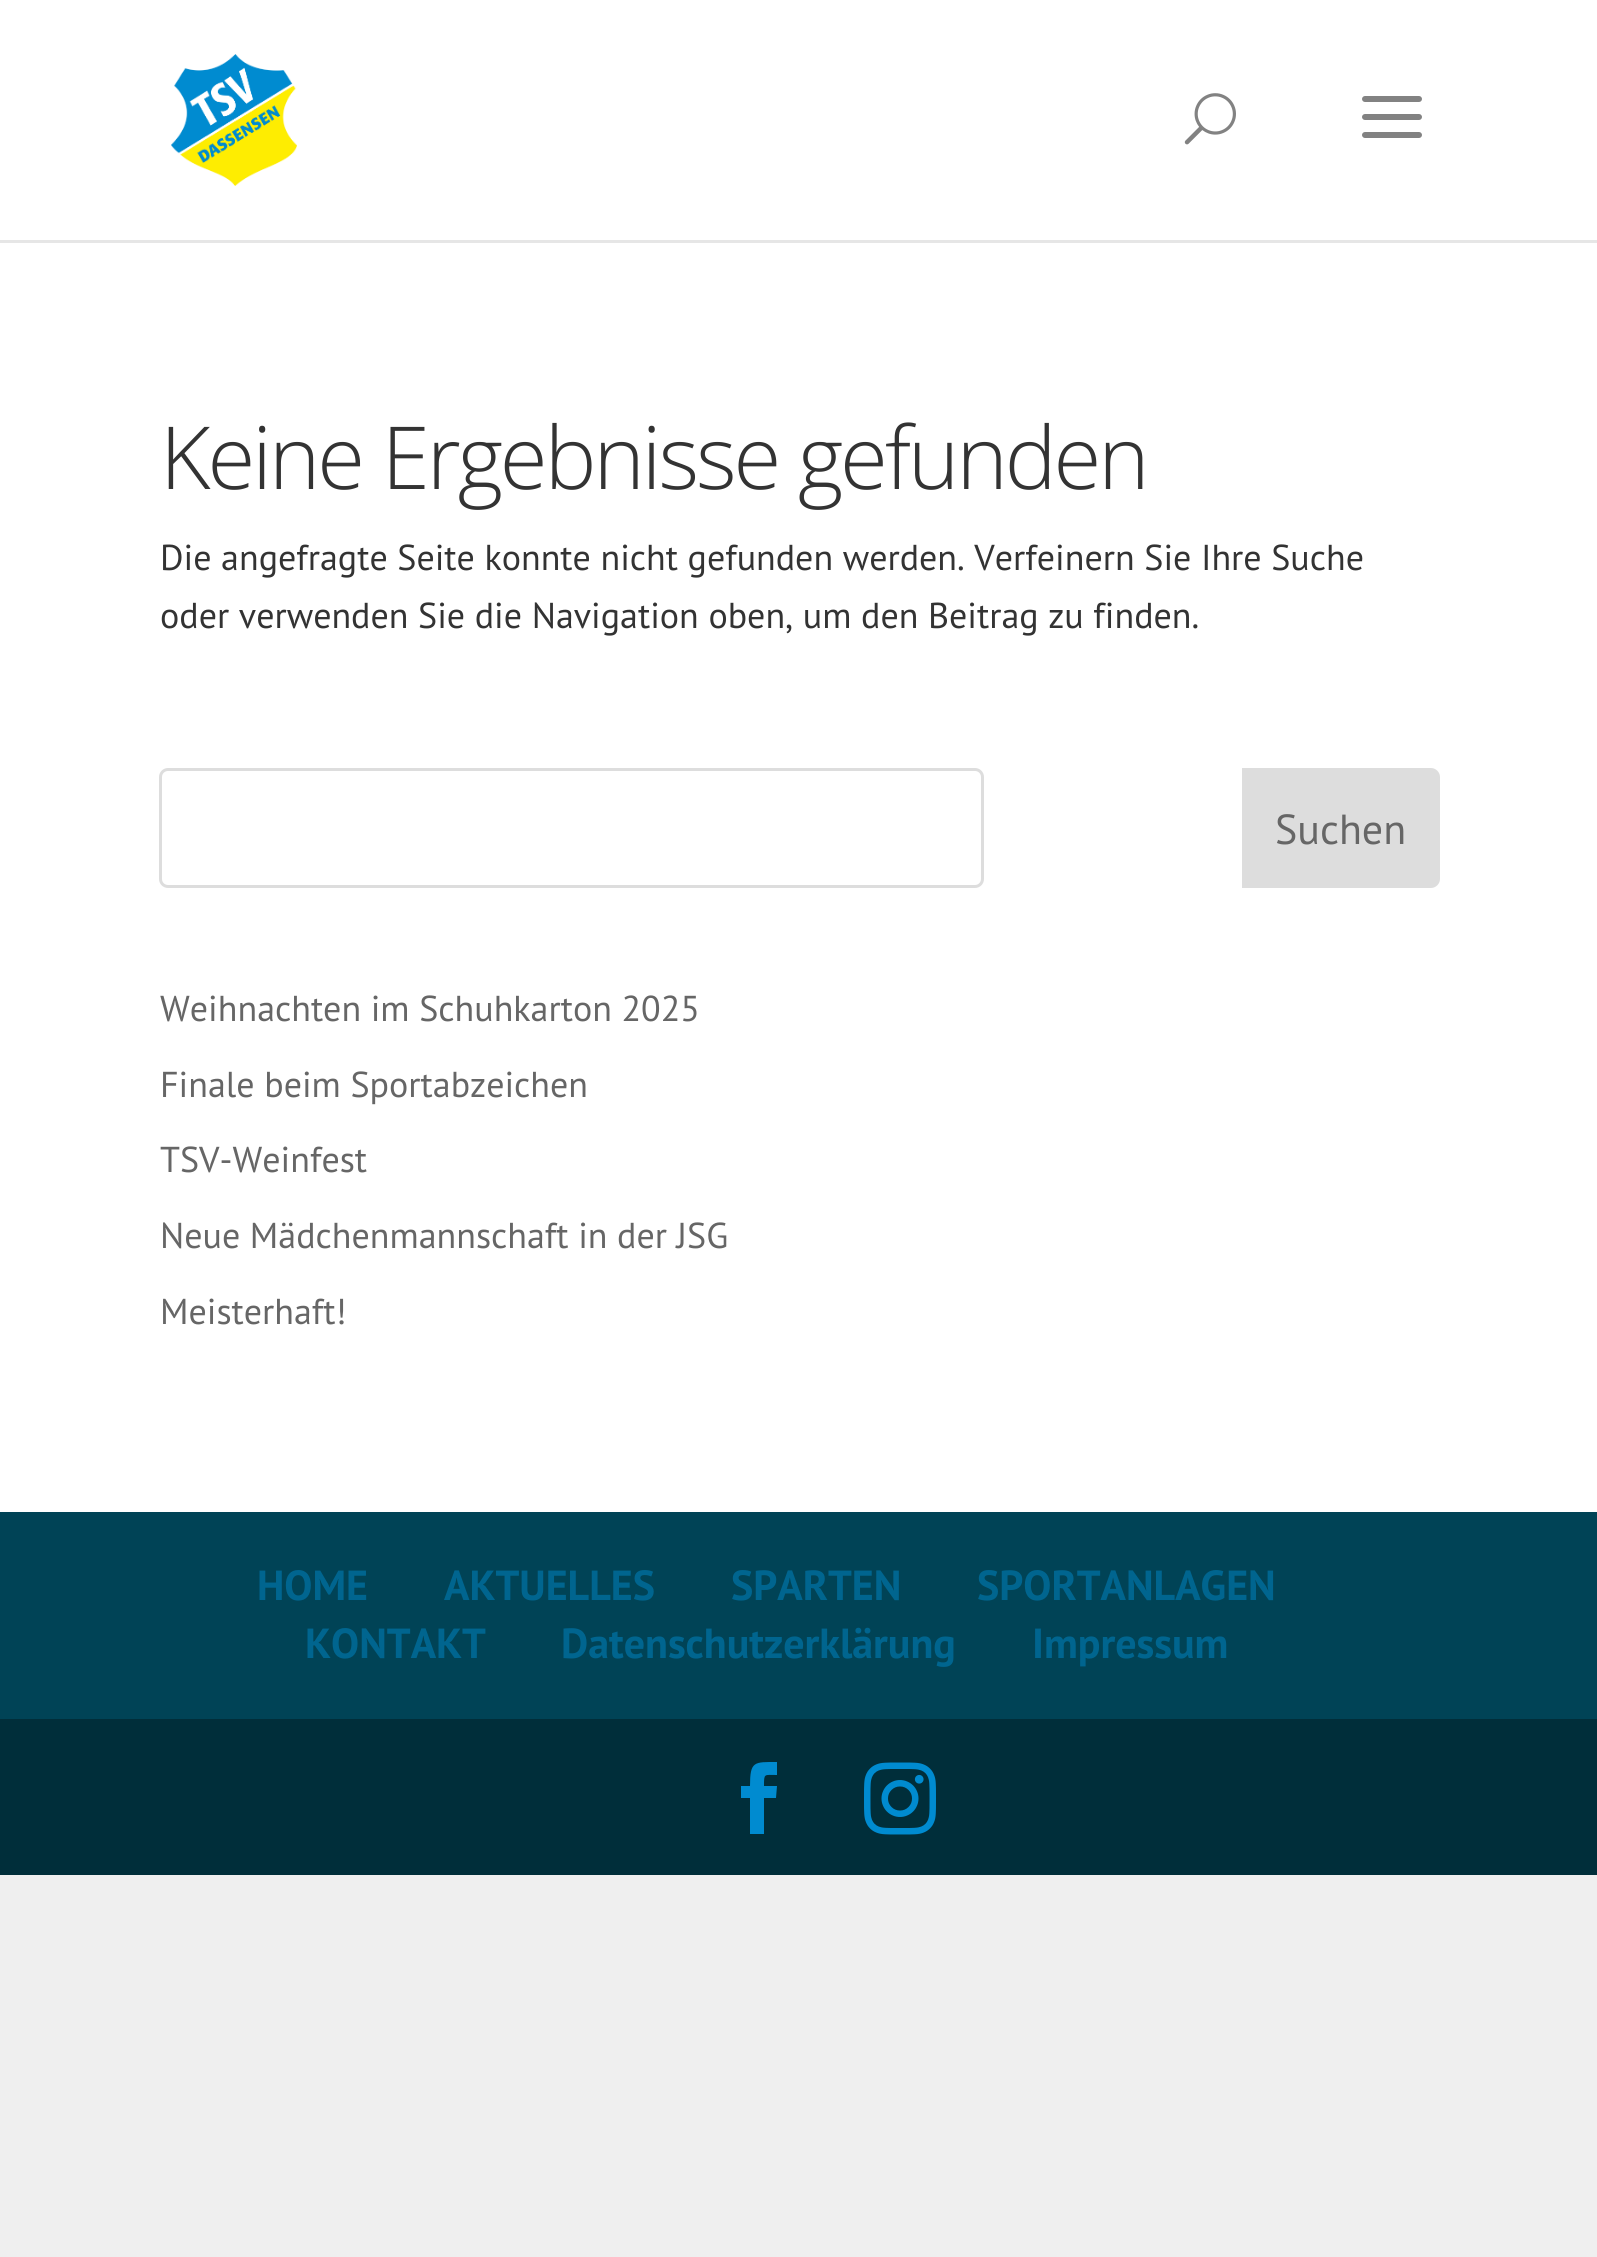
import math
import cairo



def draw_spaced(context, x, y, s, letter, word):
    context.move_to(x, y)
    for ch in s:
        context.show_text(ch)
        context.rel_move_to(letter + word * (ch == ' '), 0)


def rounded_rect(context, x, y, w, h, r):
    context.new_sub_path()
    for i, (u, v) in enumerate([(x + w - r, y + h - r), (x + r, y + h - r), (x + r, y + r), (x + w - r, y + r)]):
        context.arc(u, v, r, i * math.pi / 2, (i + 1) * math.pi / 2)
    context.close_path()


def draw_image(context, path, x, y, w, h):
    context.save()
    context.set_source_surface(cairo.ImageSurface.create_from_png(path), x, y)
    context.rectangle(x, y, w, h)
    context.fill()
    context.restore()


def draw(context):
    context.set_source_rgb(239 / 255, 239 / 255, 239 / 255)
    context.paint()
    context.set_source_rgb(230 / 255, 230 / 255, 230 / 255)
    context.rectangle(0, 240, 1597, 3)
    context.fill()
    context.set_source_rgb(1, 1, 1)
    context.rectangle(0, 0, 1597, 240)
    context.fill()
    draw_image(context, "images/1.png", 171, 54, 126, 132)
    draw_image(context, "images/2.png", 1184, 93, 52, 52)
    draw_image(context, "images/3.png", 1362, 96, 60, 42)
    context.rectangle(0, 243, 1597, 1269)
    context.fill()
    rounded_rect(context, 160.5, 769.5, 822, 117, 7.5)
    context.set_source_rgb(221 / 255, 221 / 255, 221 / 255)
    context.set_line_width(3)
    context.stroke()
    context.new_path()
    context.move_to(1243.5, 769.5)
    context.line_to(1431, 769.5)
    context.curve_to(1435, 769.5, 1438.5, 773, 1438.5, 777)
    context.line_to(1438.5, 879)
    context.curve_to(1438.5, 883, 1435, 886.5, 1431, 886.5)
    context.line_to(1243.5, 886.5)
    context.close_path()
    context.fill_preserve()
    context.stroke()
    context.set_source_rgb(0, 67 / 255, 86 / 255)
    context.rectangle(0, 1512, 1597, 207)
    context.fill()
    context.set_source_rgb(0, 46 / 255, 58 / 255)
    context.rectangle(0, 1719, 1597, 156)
    context.fill()
    context.set_source_rgb(0, 139 / 255, 208 / 255)
    context.new_path()
    context.move_to(750, 1834)
    context.line_to(764, 1834)
    context.line_to(764, 1798)
    context.line_to(776, 1798)
    context.line_to(777, 1786)
    context.line_to(764, 1786)
    context.curve_to(764, 1773, 764, 1775, 777, 1775)
    context.line_to(777, 1762)
    context.curve_to(754, 1762, 750, 1761, 750, 1786)
    context.line_to(741, 1786)
    context.line_to(741, 1798)
    context.line_to(750, 1798)
    context.close_path()
    context.fill()
    draw_image(context, "images/4.png", 864, 1762, 72, 73)
    context.select_font_face("Open Sans Light")
    context.set_font_size(87)
    context.set_source_rgb(51 / 255, 51 / 255, 51 / 255)
    draw_spaced(context, 160, 489, "Keine Ergebnisse gefunden", -3, 0)
    context.select_font_face("PT Sans")
    context.set_font_size(36)
    context.move_to(160, 570)
    context.show_text("Die angefragte Seite konnte nicht gefunden werden. Verfeinern Sie Ihre Suche")
    context.move_to(160, 628)
    context.show_text("oder verwenden Sie die Navigation oben, um den Beitrag zu finden.")
    context.set_font_size(42)
    context.set_source_rgb(102 / 255, 102 / 255, 102 / 255)
    context.move_to(1275, 844)
    context.show_text("Suchen")
    context.set_font_size(36)
    context.move_to(160, 1021)
    context.show_text("Weihnachten im Schuhkarton 2025")
    context.move_to(160, 1097)
    context.show_text("Finale beim Sportabzeichen")
    context.move_to(160, 1172)
    context.show_text("TSV-Weinfest")
    context.move_to(160, 1248)
    context.show_text("Neue Mädchenmannschaft in der JSG")
    context.move_to(160, 1324)
    context.show_text("Meisterhaft!")
    context.select_font_face("PT Sans", cairo.FontSlant.NORMAL, cairo.FontWeight.BOLD)
    context.set_font_size(42)
    context.set_source_rgb(0, 101 / 255, 143 / 255)
    context.move_to(257, 1600)
    context.show_text("HOME")
    context.move_to(444, 1600)
    context.show_text("AKTUELLES")
    context.move_to(731, 1600)
    context.show_text("SPARTEN")
    context.move_to(977, 1600)
    context.show_text("SPORTANLAGEN")
    context.move_to(305, 1658)
    context.show_text("KONTAKT")
    context.move_to(561, 1658)
    context.show_text("Datenschutzerklärung")
    context.move_to(1032, 1658)
    context.show_text("Impressum")


surface = cairo.ImageSurface(cairo.Format.RGB24, 1597, 2257)
context = cairo.Context(surface)
options = cairo.FontOptions()
options.set_hint_metrics(cairo.HintMetrics.OFF)
options.set_hint_style(cairo.HintStyle.NONE)
context.set_font_options(options)
context.set_miter_limit(4)
draw(context)
surface.write_to_png("out.png")
